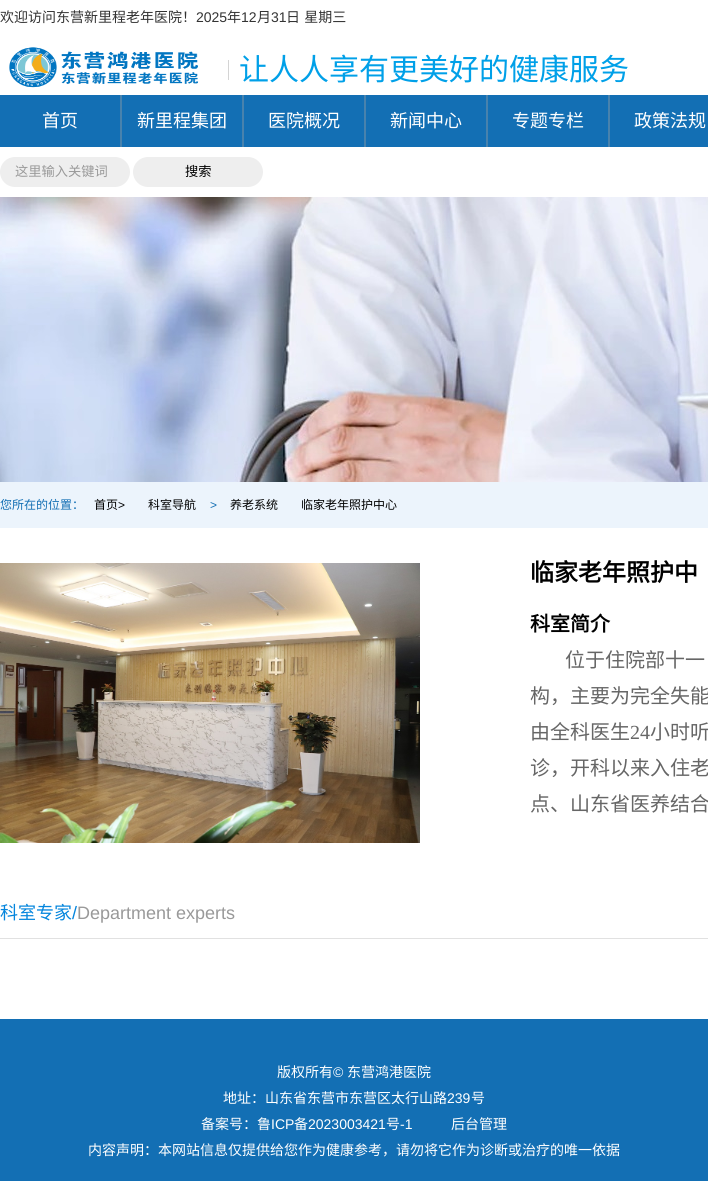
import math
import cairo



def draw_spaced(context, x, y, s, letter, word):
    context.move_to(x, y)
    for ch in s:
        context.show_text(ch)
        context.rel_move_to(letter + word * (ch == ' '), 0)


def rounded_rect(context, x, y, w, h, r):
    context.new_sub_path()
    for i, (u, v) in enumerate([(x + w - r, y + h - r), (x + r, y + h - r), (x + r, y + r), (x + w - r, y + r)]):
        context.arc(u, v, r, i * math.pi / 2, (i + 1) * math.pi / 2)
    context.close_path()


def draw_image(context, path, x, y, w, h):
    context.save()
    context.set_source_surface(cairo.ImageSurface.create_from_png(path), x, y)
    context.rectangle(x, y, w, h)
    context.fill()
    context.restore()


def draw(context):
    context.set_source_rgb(1, 1, 1)
    context.paint()
    draw_image(context, "images/1.png", 9, 47, 190, 41)
    context.set_source_rgb(212 / 255, 212 / 255, 212 / 255)
    context.rectangle(228, 60, 1, 20)
    context.fill()
    context.set_source_rgb(19 / 255, 111 / 255, 180 / 255)
    context.rectangle(0, 95, 708, 52)
    context.fill()
    context.set_source_rgb(72 / 255, 130 / 255, 173 / 255)
    context.rectangle(120, 95, 2, 52)
    context.fill()
    context.rectangle(242, 95, 2, 52)
    context.fill()
    context.rectangle(364, 95, 2, 52)
    context.fill()
    context.rectangle(486, 95, 2, 52)
    context.fill()
    context.rectangle(608, 95, 2, 52)
    context.fill()
    context.set_source_rgb(238 / 255, 238 / 255, 238 / 255)
    rounded_rect(context, 0, 157, 130, 30, 15)
    context.fill()
    rounded_rect(context, 133, 157, 130, 30, 15)
    context.fill()
    draw_image(context, "images/2.png", 0, 197, 708, 285)
    context.set_source_rgb(236 / 255, 244 / 255, 252 / 255)
    context.rectangle(0, 482, 708, 46)
    context.fill()
    draw_image(context, "images/3.png", 0, 563, 420, 280)
    context.set_source_rgb(225 / 255, 225 / 255, 225 / 255)
    context.rectangle(0, 938, 708, 1)
    context.fill()
    context.set_source_rgb(19 / 255, 111 / 255, 180 / 255)
    context.rectangle(0, 1019, 708, 162)
    context.fill()
    context.select_font_face("Noto Sans CJK SC")
    context.set_font_size(14)
    context.set_source_rgb(51 / 255, 51 / 255, 51 / 255)
    context.move_to(0, 22)
    context.show_text("欢迎访问东营新里程老年医院！")
    context.select_font_face("Liberation Sans")
    context.move_to(196, 22)
    context.show_text("2025")
    context.select_font_face("Noto Sans CJK SC")
    context.move_to(227, 22)
    context.show_text("年")
    context.select_font_face("Liberation Sans")
    context.move_to(241, 22)
    context.show_text("12")
    context.select_font_face("Noto Sans CJK SC")
    context.move_to(257, 22)
    context.show_text("月")
    context.select_font_face("Liberation Sans")
    context.move_to(271, 22)
    context.show_text("31")
    context.select_font_face("Noto Sans CJK SC")
    draw_spaced(context, 286, 22, "日 星期三", 0, 1)
    context.set_font_size(30)
    context.set_source_rgb(0, 160 / 255, 232 / 255)
    context.move_to(239, 80)
    context.show_text("让人人享有更美好的健康服务")
    context.set_font_size(18)
    context.set_source_rgb(1, 1, 1)
    context.move_to(42, 127)
    context.show_text("首页")
    context.move_to(137, 127)
    context.show_text("新里程集团")
    context.move_to(268, 127)
    context.show_text("医院概况")
    context.move_to(390, 127)
    context.show_text("新闻中心")
    context.move_to(512, 127)
    context.show_text("专题专栏")
    context.move_to(634, 127)
    context.show_text("政策法规")
    context.set_font_size(13.25)
    context.set_source_rgb(153 / 255, 153 / 255, 153 / 255)
    context.move_to(15, 176)
    context.show_text("这里输入关键词")
    context.set_source_rgb(0, 0, 0)
    context.move_to(185, 176)
    context.show_text("搜索")
    context.set_font_size(12)
    context.set_source_rgb(19 / 255, 111 / 255, 180 / 255)
    context.move_to(0, 509)
    context.show_text("您所在的位置：")
    context.set_source_rgb(0, 0, 0)
    context.move_to(94, 509)
    context.show_text("首页")
    context.select_font_face("Liberation Sans")
    context.move_to(118, 509)
    context.show_text(">")
    context.select_font_face("Noto Sans CJK SC")
    context.move_to(148, 509)
    context.show_text("科室导航")
    context.select_font_face("Liberation Sans")
    context.set_source_rgb(19 / 255, 111 / 255, 180 / 255)
    context.move_to(210, 509)
    context.show_text(">")
    context.select_font_face("Noto Sans CJK SC")
    context.set_source_rgb(0, 0, 0)
    context.move_to(230, 509)
    context.show_text("养老系统")
    context.move_to(301, 509)
    context.show_text("临家老年照护中心")
    context.select_font_face("Noto Sans CJK SC", cairo.FontSlant.NORMAL, cairo.FontWeight.BOLD)
    context.set_font_size(24)
    context.move_to(530, 581)
    context.show_text("临家老年照护中")
    context.set_font_size(20)
    context.move_to(530, 631)
    context.show_text("科室简介")
    context.select_font_face("Noto Sans CJK SC")
    context.set_source_rgb(102 / 255, 102 / 255, 102 / 255)
    context.move_to(565, 667)
    context.show_text("位于住院部十一")
    context.move_to(530, 703)
    context.show_text("构，主要为完全失能")
    context.move_to(530, 739)
    context.show_text("由全科医生")
    context.select_font_face("Liberation Serif")
    context.move_to(630, 739)
    context.show_text("24")
    context.select_font_face("Noto Sans CJK SC")
    context.move_to(650, 739)
    context.show_text("小时听")
    context.move_to(530, 775)
    context.show_text("诊，开科以来入住老")
    context.move_to(530, 811)
    context.show_text("点、山东省医养结合")
    context.set_font_size(18)
    context.set_source_rgb(3 / 255, 133 / 255, 221 / 255)
    context.move_to(0, 919)
    context.show_text("科室专家")
    context.select_font_face("Liberation Sans")
    context.move_to(72, 919)
    context.show_text("/")
    context.set_source_rgb(153 / 255, 153 / 255, 153 / 255)
    context.move_to(77, 919)
    context.show_text("Department experts")
    context.select_font_face("Noto Sans CJK SC")
    context.set_font_size(14)
    context.set_source_rgb(1, 1, 1)
    context.move_to(277, 1077)
    context.show_text("版权所有")
    context.select_font_face("Liberation Sans")
    context.move_to(333, 1077)
    context.show_text("©")
    context.select_font_face("Noto Sans CJK SC")
    context.move_to(347, 1077)
    context.show_text("东营鸿港医院")
    context.move_to(223, 1103)
    context.show_text("地址：山东省东营市东营区太行山路")
    context.select_font_face("Liberation Sans")
    context.move_to(447, 1103)
    context.show_text("239")
    context.select_font_face("Noto Sans CJK SC")
    context.move_to(471, 1103)
    context.show_text("号")
    context.move_to(201, 1129)
    context.show_text("备案号：鲁")
    context.select_font_face("Liberation Sans")
    context.move_to(271, 1129)
    context.show_text("ICP")
    context.select_font_face("Noto Sans CJK SC")
    context.move_to(294, 1129)
    context.show_text("备")
    context.select_font_face("Liberation Sans")
    context.move_to(308, 1129)
    context.show_text("2023003421")
    context.select_font_face("Noto Sans CJK SC")
    context.move_to(386, 1129)
    context.show_text("号")
    context.select_font_face("Liberation Sans")
    context.move_to(400, 1129)
    context.show_text("-1")
    context.select_font_face("Noto Sans CJK SC")
    context.move_to(451, 1129)
    context.show_text("后台管理")
    context.move_to(88, 1155)
    context.show_text("内容声明：本网站信息仅提供给您作为健康参考，请勿将它作为诊断或治疗的唯一依据")


surface = cairo.ImageSurface(cairo.Format.RGB24, 708, 1181)
context = cairo.Context(surface)
options = cairo.FontOptions()
options.set_hint_metrics(cairo.HintMetrics.OFF)
options.set_hint_style(cairo.HintStyle.NONE)
context.set_font_options(options)
context.set_miter_limit(4)
draw(context)
surface.write_to_png("out.png")
